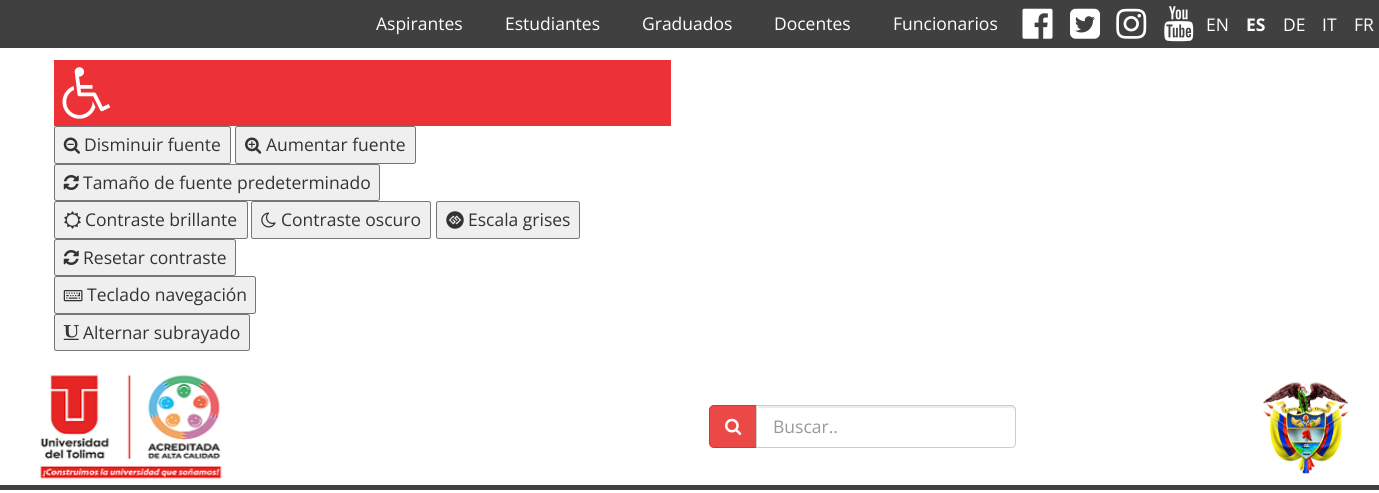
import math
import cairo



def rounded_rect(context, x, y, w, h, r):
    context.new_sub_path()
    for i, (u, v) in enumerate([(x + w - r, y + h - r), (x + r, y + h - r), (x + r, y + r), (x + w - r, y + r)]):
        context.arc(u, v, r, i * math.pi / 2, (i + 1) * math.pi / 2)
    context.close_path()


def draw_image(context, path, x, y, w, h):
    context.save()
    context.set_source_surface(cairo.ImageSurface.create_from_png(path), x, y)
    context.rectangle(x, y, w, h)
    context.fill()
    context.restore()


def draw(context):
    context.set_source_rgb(1, 1, 1)
    context.paint()
    context.set_source_rgb(64 / 255, 64 / 255, 64 / 255)
    context.rectangle(0, 0, 1379, 48)
    context.fill()
    draw_image(context, "images/1.png", 1022, 8, 31, 31)
    draw_image(context, "images/2.png", 1070, 8, 30, 31)
    draw_image(context, "images/3.png", 1116, 8, 31, 31)
    draw_image(context, "images/4.png", 1164, 6, 30, 36)
    context.set_source_rgb(237 / 255, 50 / 255, 55 / 255)
    context.rectangle(54, 60, 617, 66)
    context.fill()
    draw_image(context, "images/5.png", 62, 67, 49, 52)
    context.set_source_rgb(239 / 255, 239 / 255, 239 / 255)
    rounded_rect(context, 54.5, 126.5, 176, 37, 2)
    context.fill_preserve()
    context.set_source_rgb(118 / 255, 118 / 255, 118 / 255)
    context.set_line_width(1)
    context.stroke()
    draw_image(context, "images/6.png", 63, 137, 17, 17)
    context.set_source_rgb(239 / 255, 239 / 255, 239 / 255)
    rounded_rect(context, 235.5, 126.5, 180, 37, 2)
    context.fill_preserve()
    context.set_source_rgb(118 / 255, 118 / 255, 118 / 255)
    context.stroke()
    draw_image(context, "images/7.png", 245, 137, 17, 17)
    context.set_source_rgb(239 / 255, 239 / 255, 239 / 255)
    rounded_rect(context, 54.5, 164.5, 325, 36, 2)
    context.fill_preserve()
    context.set_source_rgb(118 / 255, 118 / 255, 118 / 255)
    context.stroke()
    draw_image(context, "images/8.png", 63, 175, 16, 15)
    context.set_source_rgb(239 / 255, 239 / 255, 239 / 255)
    rounded_rect(context, 54.5, 201.5, 193, 37, 2)
    context.fill_preserve()
    context.set_source_rgb(118 / 255, 118 / 255, 118 / 255)
    context.stroke()
    draw_image(context, "images/9.png", 64, 211, 17, 18)
    context.set_source_rgb(239 / 255, 239 / 255, 239 / 255)
    rounded_rect(context, 251.5, 201.5, 179, 37, 2)
    context.fill_preserve()
    context.set_source_rgb(118 / 255, 118 / 255, 118 / 255)
    context.stroke()
    draw_image(context, "images/10.png", 261, 212, 15, 16)
    context.set_source_rgb(239 / 255, 239 / 255, 239 / 255)
    rounded_rect(context, 436.5, 201.5, 143, 37, 2)
    context.fill_preserve()
    context.set_source_rgb(118 / 255, 118 / 255, 118 / 255)
    context.stroke()
    draw_image(context, "images/11.png", 446, 211, 18, 18)
    context.set_source_rgb(239 / 255, 239 / 255, 239 / 255)
    rounded_rect(context, 54.5, 239.5, 181, 36, 2)
    context.fill_preserve()
    context.set_source_rgb(118 / 255, 118 / 255, 118 / 255)
    context.stroke()
    draw_image(context, "images/8.png", 63, 250, 16, 15)
    context.set_source_rgb(239 / 255, 239 / 255, 239 / 255)
    rounded_rect(context, 54.5, 276.5, 201, 37, 2)
    context.fill_preserve()
    context.set_source_rgb(118 / 255, 118 / 255, 118 / 255)
    context.stroke()
    draw_image(context, "images/12.png", 63, 290, 20, 12)
    context.set_source_rgb(239 / 255, 239 / 255, 239 / 255)
    rounded_rect(context, 54.5, 314.5, 195, 36, 2)
    context.fill_preserve()
    context.set_source_rgb(118 / 255, 118 / 255, 118 / 255)
    context.stroke()
    draw_image(context, "images/13.png", 63, 325, 16, 15)
    draw_image(context, "images/14.png", 39, 374, 184, 106)
    context.set_source_rgb(235 / 255, 73 / 255, 71 / 255)
    context.new_path()
    context.move_to(714, 405.5)
    context.line_to(757.5, 405.5)
    context.line_to(757.5, 447.5)
    context.line_to(714, 447.5)
    context.curve_to(711.5, 447.5, 709.5, 445.5, 709.5, 443)
    context.line_to(709.5, 410)
    context.curve_to(709.5, 407.5, 711.5, 405.5, 714, 405.5)
    context.close_path()
    context.fill_preserve()
    context.set_source_rgb(232 / 255, 46 / 255, 43 / 255)
    context.stroke()
    draw_image(context, "images/15.png", 725, 418, 17, 17)
    context.set_source_rgb(1, 1, 1)
    context.new_path()
    context.move_to(756, 405)
    context.line_to(1011, 405)
    context.curve_to(1014, 405, 1016, 407, 1016, 410)
    context.line_to(1016, 443)
    context.curve_to(1016, 446, 1014, 448, 1011, 448)
    context.line_to(756, 448)
    context.close_path()
    context.fill()
    context.set_source_rgb(236 / 255, 236 / 255, 236 / 255)
    context.new_path()
    context.move_to(758, 408)
    context.line_to(1011, 408)
    context.curve_to(1013, 408, 1015, 409, 1015, 411)
    context.line_to(1015, 410)
    context.curve_to(1015, 408, 1013, 406, 1011, 406)
    context.line_to(758, 406)
    context.close_path()
    context.fill()
    context.new_path()
    context.move_to(756.5, 405.5)
    context.line_to(1011, 405.5)
    context.curve_to(1013.5, 405.5, 1015.5, 407.5, 1015.5, 410)
    context.line_to(1015.5, 443)
    context.curve_to(1015.5, 445.5, 1013.5, 447.5, 1011, 447.5)
    context.line_to(756.5, 447.5)
    context.close_path()
    context.set_source_rgb(204 / 255, 204 / 255, 204 / 255)
    context.stroke()
    draw_image(context, "images/16.png", 1263, 381, 86, 93)
    context.set_source_rgb(64 / 255, 64 / 255, 64 / 255)
    context.rectangle(0, 485, 1379, 5)
    context.fill()
    context.select_font_face("Open Sans")
    context.set_font_size(17.5)
    context.set_source_rgb(1, 1, 1)
    context.move_to(376, 30)
    context.show_text("Aspirantes")
    context.move_to(505, 30)
    context.show_text("Estudiantes")
    context.move_to(642, 30)
    context.show_text("Graduados")
    context.move_to(774, 30)
    context.show_text("Docentes")
    context.move_to(893, 30)
    context.show_text("Funcionarios")
    context.move_to(1206, 31)
    context.show_text("EN")
    context.select_font_face("Open Sans", cairo.FontSlant.NORMAL, cairo.FontWeight.BOLD)
    context.move_to(1246, 31)
    context.show_text("ES")
    context.select_font_face("Open Sans")
    context.move_to(1283, 31)
    context.show_text("DE")
    context.move_to(1322, 31)
    context.show_text("IT")
    context.move_to(1354, 31)
    context.show_text("FR")
    context.set_source_rgb(51 / 255, 51 / 255, 51 / 255)
    context.move_to(84, 151)
    context.show_text("Disminuir fuente")
    context.move_to(266, 151)
    context.show_text("Aumentar fuente")
    context.move_to(83, 189)
    context.show_text("Tamaño de fuente predeterminado")
    context.move_to(85, 226)
    context.show_text("Contraste brillante")
    context.move_to(281, 226)
    context.show_text("Contraste oscuro")
    context.move_to(468, 226)
    context.show_text("Escala grises")
    context.move_to(83, 264)
    context.show_text("Resetar contraste")
    context.move_to(87, 301)
    context.show_text("Teclado navegación")
    context.move_to(83, 339)
    context.show_text("Alternar subrayado")
    context.set_source_rgb(153 / 255, 153 / 255, 153 / 255)
    context.move_to(773, 433)
    context.show_text("Buscar..")


surface = cairo.ImageSurface(cairo.Format.RGB24, 1379, 493)
context = cairo.Context(surface)
options = cairo.FontOptions()
options.set_hint_metrics(cairo.HintMetrics.OFF)
options.set_hint_style(cairo.HintStyle.NONE)
context.set_font_options(options)
context.set_miter_limit(4)
draw(context)
surface.write_to_png("out.png")
